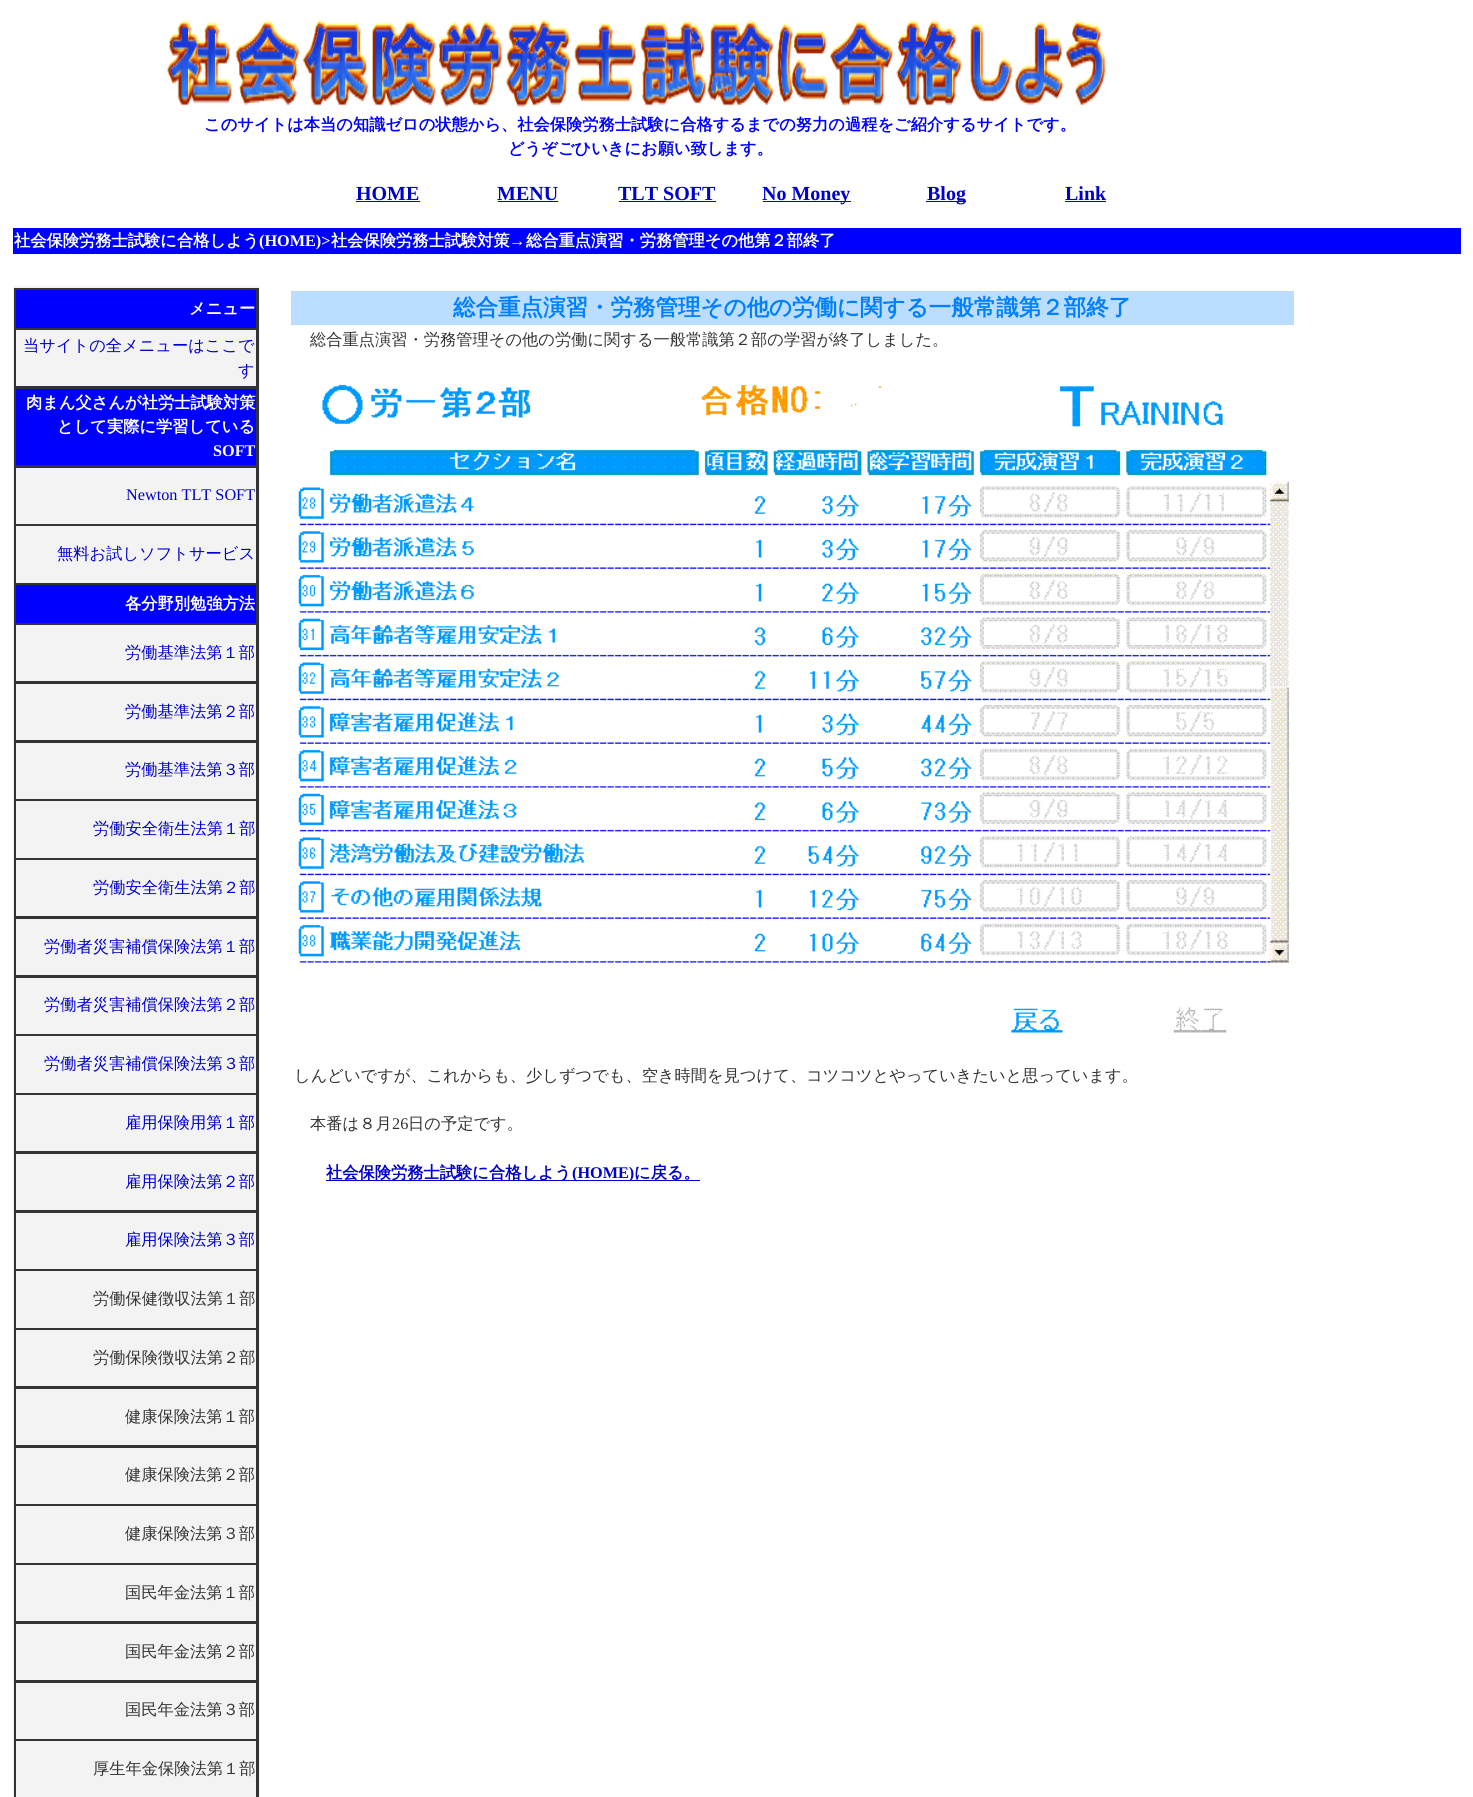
import math
import cairo



def draw_image(context, path, x, y, w, h):
    context.save()
    context.set_source_surface(cairo.ImageSurface.create_from_png(path), x, y)
    context.rectangle(x, y, w, h)
    context.fill()
    context.restore()


def draw(context):
    context.set_source_rgb(1, 1, 1)
    context.paint()
    draw_image(context, "images/1.png", 167, 19, 939, 89)
    context.set_source_rgb(0, 0, 204 / 255)
    context.rectangle(356, 201, 64, 1)
    context.fill()
    context.rectangle(498, 201, 60, 1)
    context.fill()
    context.rectangle(619, 201, 97, 1)
    context.fill()
    context.rectangle(763, 201, 88, 1)
    context.fill()
    context.rectangle(926, 201, 40, 1)
    context.fill()
    context.rectangle(1065, 201, 41, 1)
    context.fill()
    context.set_source_rgb(0, 0, 1)
    context.rectangle(13, 228, 1448, 26)
    context.fill()
    context.set_source_rgb(243 / 255, 243 / 255, 243 / 255)
    context.rectangle(13, 286, 247, 1511)
    context.fill()
    context.set_source_rgb(51 / 255, 51 / 255, 51 / 255)
    context.rectangle(14, 288, 245, 1509)
    context.fill()
    context.set_source_rgb(0, 0, 1)
    context.rectangle(16, 290, 240, 38)
    context.fill()
    context.set_source_rgb(243 / 255, 243 / 255, 243 / 255)
    context.rectangle(16, 330, 240, 56)
    context.fill()
    context.set_source_rgb(0, 0, 1)
    context.rectangle(16, 389, 240, 76)
    context.fill()
    context.set_source_rgb(243 / 255, 243 / 255, 243 / 255)
    context.rectangle(16, 468, 240, 56)
    context.fill()
    context.rectangle(16, 526, 240, 57)
    context.fill()
    context.set_source_rgb(0, 0, 1)
    context.rectangle(16, 585, 240, 38)
    context.fill()
    context.set_source_rgb(243 / 255, 243 / 255, 243 / 255)
    context.rectangle(16, 625, 240, 56)
    context.fill()
    context.rectangle(16, 684, 240, 56)
    context.fill()
    context.rectangle(16, 743, 240, 56)
    context.fill()
    context.rectangle(16, 801, 240, 57)
    context.fill()
    context.rectangle(16, 860, 240, 56)
    context.fill()
    context.rectangle(16, 919, 240, 56)
    context.fill()
    context.rectangle(16, 978, 240, 56)
    context.fill()
    context.rectangle(16, 1036, 240, 57)
    context.fill()
    context.rectangle(16, 1095, 240, 56)
    context.fill()
    context.rectangle(16, 1154, 240, 56)
    context.fill()
    context.rectangle(16, 1213, 240, 56)
    context.fill()
    context.rectangle(16, 1271, 240, 57)
    context.fill()
    context.rectangle(16, 1330, 240, 56)
    context.fill()
    context.rectangle(16, 1389, 240, 56)
    context.fill()
    context.rectangle(16, 1448, 240, 56)
    context.fill()
    context.rectangle(16, 1506, 240, 57)
    context.fill()
    context.rectangle(16, 1565, 240, 56)
    context.fill()
    context.rectangle(16, 1624, 240, 56)
    context.fill()
    context.rectangle(16, 1683, 240, 56)
    context.fill()
    context.rectangle(16, 1741, 240, 56)
    context.fill()
    context.set_source_rgb(187 / 255, 221 / 255, 1)
    context.rectangle(291, 291, 1003, 34)
    context.fill()
    draw_image(context, "images/2.png", 298, 384, 991, 649)
    context.set_source_rgb(0, 0, 204 / 255)
    context.rectangle(326, 1180, 374, 1)
    context.fill()
    context.select_font_face("WenQuanYi Zen Hei", cairo.FontSlant.NORMAL, cairo.FontWeight.BOLD)
    context.set_font_size(16.25)
    context.set_source_rgb(0, 0, 1)
    context.move_to(204, 130)
    context.show_text("このサイトは本当の知識ゼロの状態から、社会保険労務士試験に合格するまでの努力の過程をご紹介するサイトです。")
    context.move_to(508, 154)
    context.show_text("どうぞごひいきにお願い致します。")
    context.select_font_face("Liberation Serif", cairo.FontSlant.NORMAL, cairo.FontWeight.BOLD)
    context.set_font_size(20)
    context.set_source_rgb(0, 0, 204 / 255)
    context.move_to(356, 200)
    context.show_text("HOME")
    context.move_to(497, 200)
    context.show_text("MENU")
    context.move_to(618, 200)
    context.show_text("TLT SOFT")
    context.move_to(762, 200)
    context.show_text("No Money")
    context.move_to(927, 200)
    context.show_text("Blog")
    context.move_to(1065, 200)
    context.show_text("Link")
    context.select_font_face("WenQuanYi Zen Hei", cairo.FontSlant.NORMAL, cairo.FontWeight.BOLD)
    context.set_font_size(16.25)
    context.set_source_rgb(1, 1, 1)
    context.move_to(14, 246)
    context.show_text("社会保険労務士試験に合格しよう")
    context.select_font_face("Liberation Serif", cairo.FontSlant.NORMAL, cairo.FontWeight.BOLD)
    context.move_to(259, 246)
    context.show_text("(HOME)>")
    context.select_font_face("WenQuanYi Zen Hei", cairo.FontSlant.NORMAL, cairo.FontWeight.BOLD)
    context.move_to(331, 246)
    context.show_text("社会保険労務士試験対策")
    context.select_font_face("Liberation Serif", cairo.FontSlant.NORMAL, cairo.FontWeight.BOLD)
    context.move_to(509, 246)
    context.show_text("→")
    context.select_font_face("WenQuanYi Zen Hei", cairo.FontSlant.NORMAL, cairo.FontWeight.BOLD)
    context.move_to(526, 246)
    context.show_text("総合重点演習・労務管理その他第２部終了")
    context.move_to(189, 314)
    context.show_text("メニュー")
    context.select_font_face("WenQuanYi Zen Hei Medium")
    context.set_source_rgb(0, 0, 204 / 255)
    context.move_to(23, 351)
    context.show_text("当サイトの全メニューはここで")
    context.move_to(238, 376)
    context.show_text("す")
    context.select_font_face("WenQuanYi Zen Hei", cairo.FontSlant.NORMAL, cairo.FontWeight.BOLD)
    context.set_source_rgb(1, 1, 1)
    context.move_to(26, 408)
    context.show_text("肉まん父さんが社労士試験対策")
    context.move_to(57, 432)
    context.show_text("として実際に学習している")
    context.select_font_face("Liberation Serif", cairo.FontSlant.NORMAL, cairo.FontWeight.BOLD)
    context.move_to(213, 456)
    context.show_text("SOFT")
    context.select_font_face("Liberation Serif")
    context.set_source_rgb(0, 0, 204 / 255)
    context.move_to(126, 500)
    context.show_text("Newton TLT SOFT")
    context.select_font_face("WenQuanYi Zen Hei Medium")
    context.move_to(57, 559)
    context.show_text("無料お試しソフトサービス")
    context.select_font_face("WenQuanYi Zen Hei", cairo.FontSlant.NORMAL, cairo.FontWeight.BOLD)
    context.set_source_rgb(1, 1, 1)
    context.move_to(125, 609)
    context.show_text("各分野別勉強方法")
    context.select_font_face("WenQuanYi Zen Hei Medium")
    context.set_source_rgb(0, 0, 204 / 255)
    context.move_to(125, 658)
    context.show_text("労働基準法第１部")
    context.move_to(125, 717)
    context.show_text("労働基準法第２部")
    context.move_to(125, 775)
    context.show_text("労働基準法第３部")
    context.move_to(93, 834)
    context.show_text("労働安全衛生法第１部")
    context.move_to(93, 893)
    context.show_text("労働安全衛生法第２部")
    context.move_to(44, 952)
    context.show_text("労働者災害補償保険法第１部")
    context.move_to(44, 1010)
    context.show_text("労働者災害補償保険法第２部")
    context.move_to(44, 1069)
    context.show_text("労働者災害補償保険法第３部")
    context.move_to(125, 1128)
    context.show_text("雇用保険用第１部")
    context.move_to(125, 1187)
    context.show_text("雇用保険法第２部")
    context.move_to(125, 1245)
    context.show_text("雇用保険法第３部")
    context.set_source_rgb(51 / 255, 51 / 255, 51 / 255)
    context.move_to(93, 1304)
    context.show_text("労働保健徴収法第１部")
    context.move_to(93, 1363)
    context.show_text("労働保険徴収法第２部")
    context.move_to(125, 1422)
    context.show_text("健康保険法第１部")
    context.move_to(125, 1480)
    context.show_text("健康保険法第２部")
    context.move_to(125, 1539)
    context.show_text("健康保険法第３部")
    context.move_to(125, 1598)
    context.show_text("国民年金法第１部")
    context.move_to(125, 1657)
    context.show_text("国民年金法第２部")
    context.move_to(125, 1715)
    context.show_text("国民年金法第３部")
    context.move_to(93, 1774)
    context.show_text("厚生年金保険法第１部")
    context.select_font_face("WenQuanYi Zen Hei", cairo.FontSlant.NORMAL, cairo.FontWeight.BOLD)
    context.set_font_size(22.5)
    context.set_source_rgb(0, 128 / 255, 1)
    context.move_to(453, 315)
    context.show_text("総合重点演習・労務管理その他の労働に関する一般常識第２部終了")
    context.select_font_face("WenQuanYi Zen Hei Medium")
    context.set_font_size(16.25)
    context.set_source_rgb(51 / 255, 51 / 255, 51 / 255)
    context.move_to(310, 345)
    context.show_text("総合重点演習・労務管理その他の労働に関する一般常識第２部の学習が終了しました。")
    context.move_to(294, 1081)
    context.show_text("しんどいですが、これからも、少しずつでも、空き時間を見つけて、コツコツとやっていきたいと思っています。")
    context.move_to(310, 1129)
    context.show_text("本番は８月")
    context.select_font_face("Liberation Serif")
    context.move_to(392, 1129)
    context.show_text("26")
    context.select_font_face("WenQuanYi Zen Hei Medium")
    context.move_to(408, 1129)
    context.show_text("日の予定です。")
    context.select_font_face("WenQuanYi Zen Hei", cairo.FontSlant.NORMAL, cairo.FontWeight.BOLD)
    context.set_source_rgb(0, 0, 204 / 255)
    context.move_to(326, 1178)
    context.show_text("社会保険労務士試験に合格しよう")
    context.select_font_face("Liberation Serif", cairo.FontSlant.NORMAL, cairo.FontWeight.BOLD)
    context.move_to(572, 1178)
    context.show_text("(HOME)")
    context.select_font_face("WenQuanYi Zen Hei", cairo.FontSlant.NORMAL, cairo.FontWeight.BOLD)
    context.move_to(634, 1178)
    context.show_text("に戻る。")


surface = cairo.ImageSurface(cairo.Format.RGB24, 1473, 1797)
context = cairo.Context(surface)
options = cairo.FontOptions()
options.set_hint_metrics(cairo.HintMetrics.OFF)
options.set_hint_style(cairo.HintStyle.NONE)
context.set_font_options(options)
context.set_miter_limit(4)
draw(context)
surface.write_to_png("out.png")
